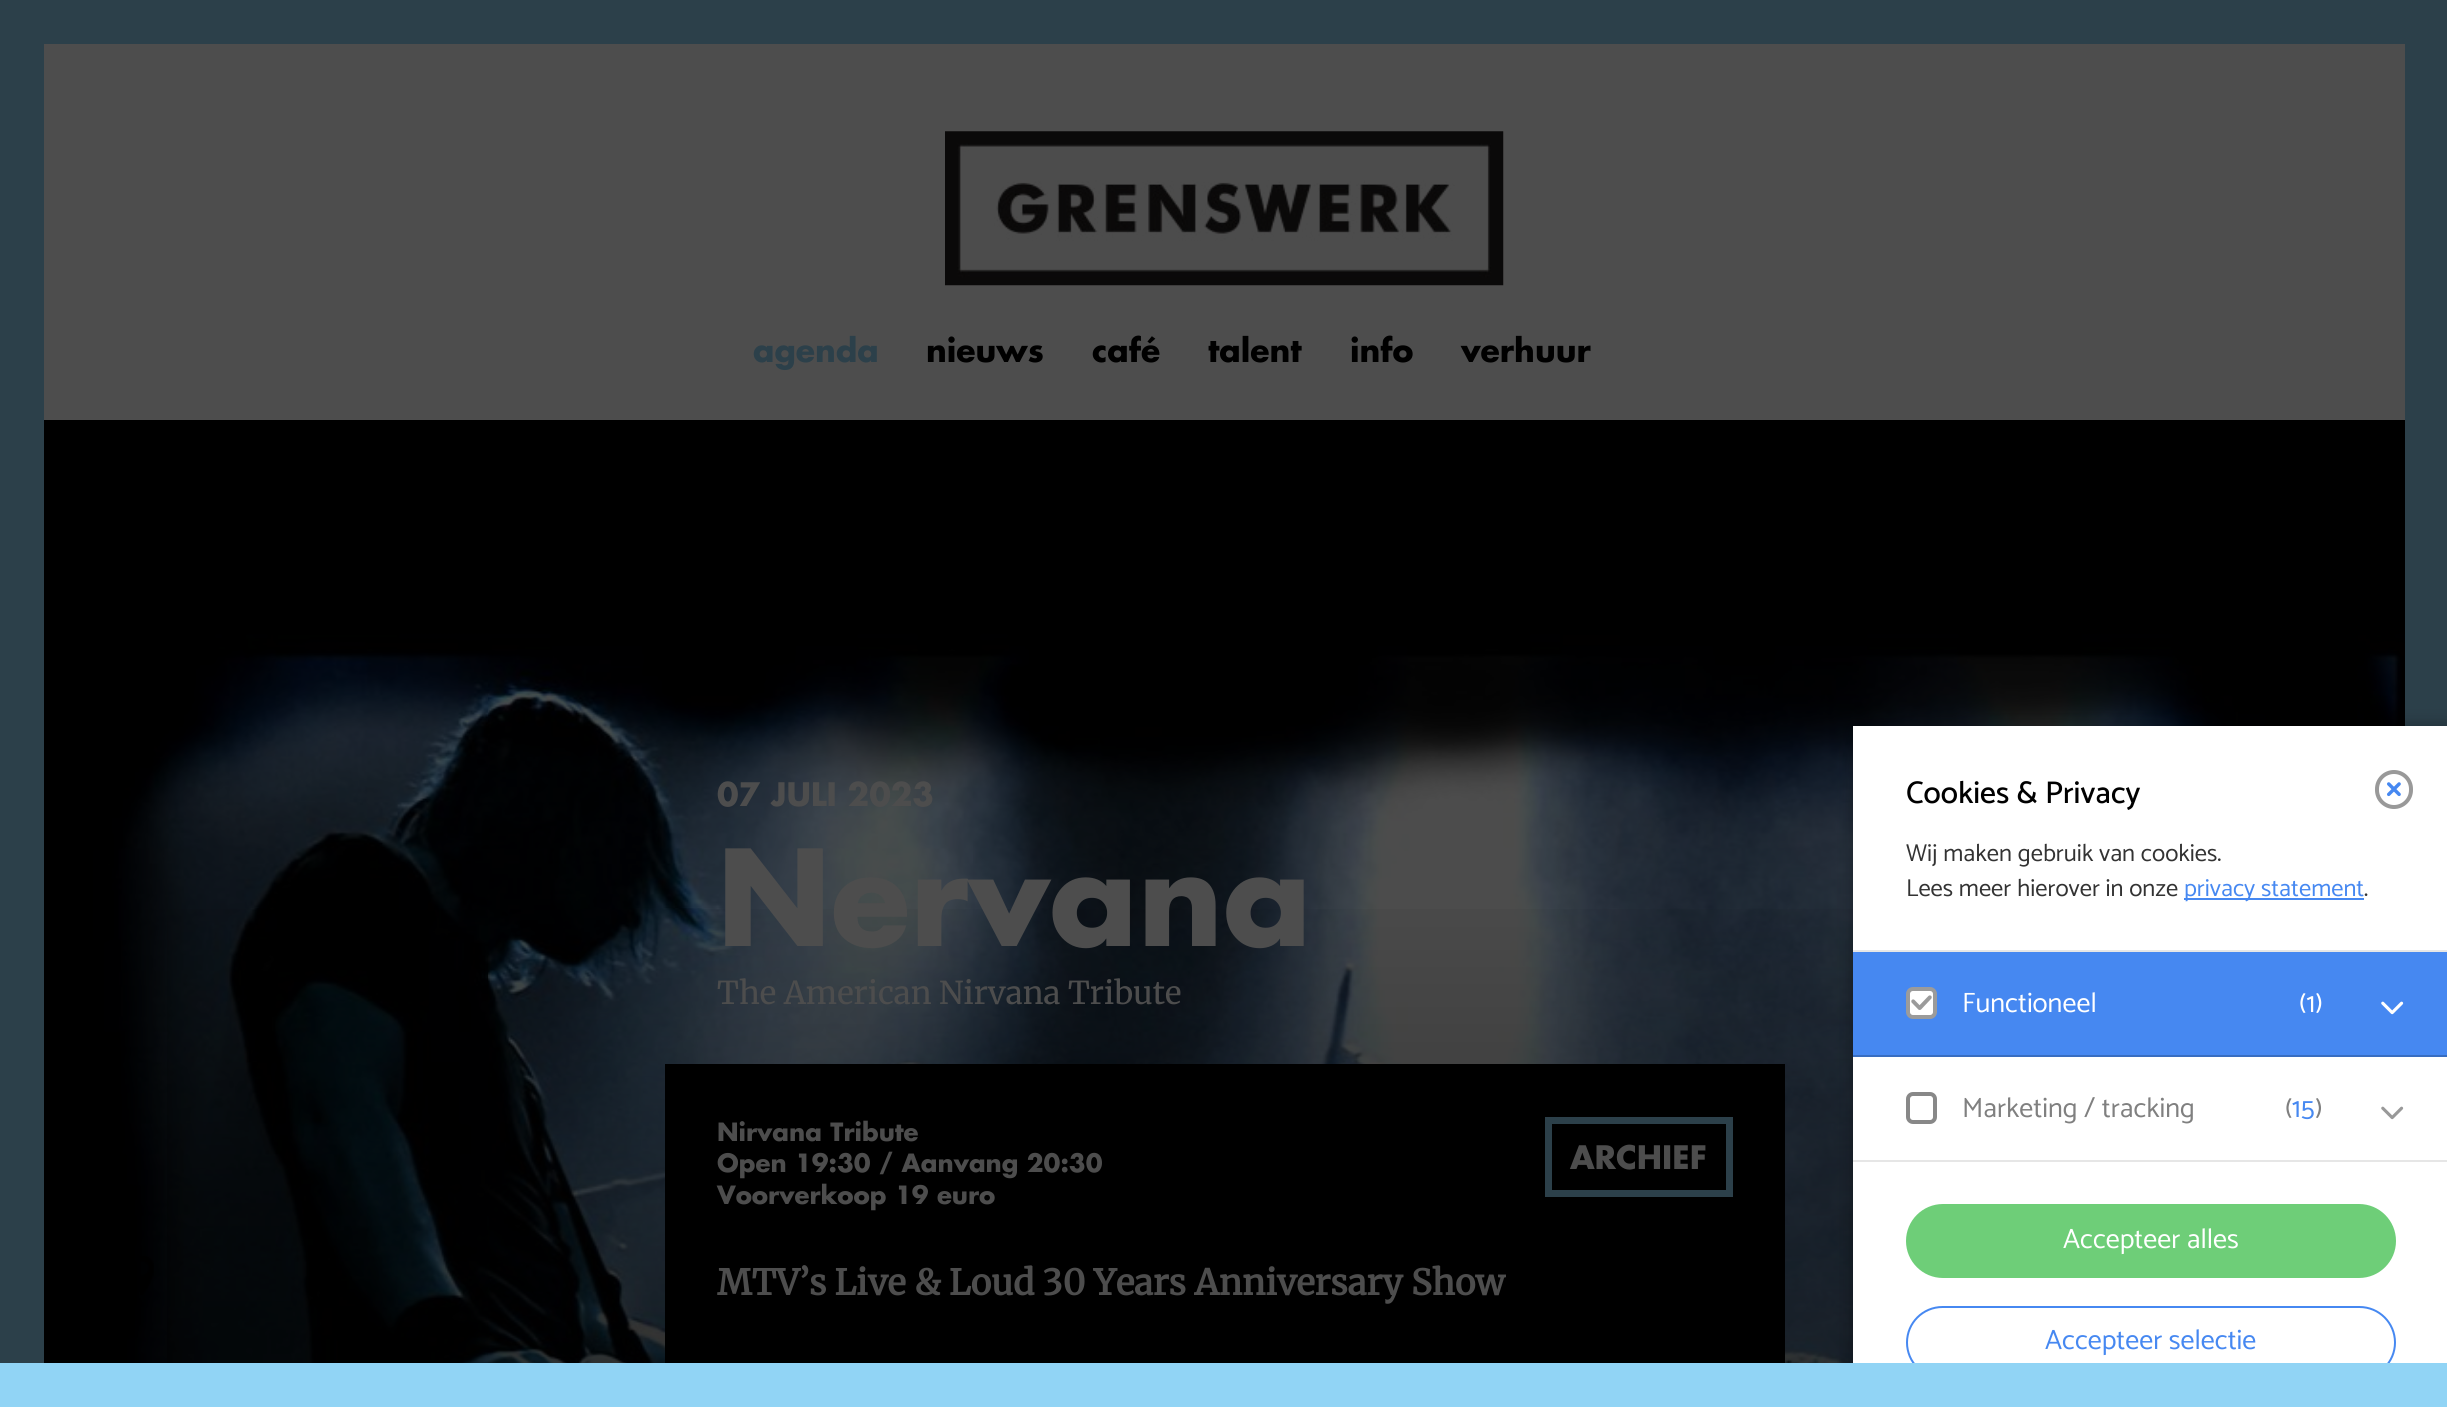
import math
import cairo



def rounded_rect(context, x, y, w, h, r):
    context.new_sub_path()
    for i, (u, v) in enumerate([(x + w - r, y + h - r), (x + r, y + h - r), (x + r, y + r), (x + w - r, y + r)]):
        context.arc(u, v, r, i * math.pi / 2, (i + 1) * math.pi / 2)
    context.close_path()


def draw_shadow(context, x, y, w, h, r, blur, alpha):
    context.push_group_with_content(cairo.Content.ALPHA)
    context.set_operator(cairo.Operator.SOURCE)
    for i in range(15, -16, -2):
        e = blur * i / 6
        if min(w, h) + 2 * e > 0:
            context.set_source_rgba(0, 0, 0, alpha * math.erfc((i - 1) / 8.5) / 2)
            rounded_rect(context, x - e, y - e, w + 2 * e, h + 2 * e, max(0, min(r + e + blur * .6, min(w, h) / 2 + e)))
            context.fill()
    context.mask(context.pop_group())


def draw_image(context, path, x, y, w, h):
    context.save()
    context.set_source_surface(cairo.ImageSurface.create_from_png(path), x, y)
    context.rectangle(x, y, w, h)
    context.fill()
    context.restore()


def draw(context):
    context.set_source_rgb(77 / 255, 77 / 255, 77 / 255)
    context.paint()
    context.set_source_rgb(44 / 255, 64 / 255, 74 / 255)
    context.rectangle(0, 0, 2447, 44)
    context.fill()
    context.rectangle(0, 44, 44, 1319)
    context.fill()
    draw_image(context, "images/1.png", 945, 131, 559, 155)
    draw_image(context, "images/3.png", 44, 420, 2361, 943)
    draw_image(context, "images/2.png", 140, 1256, 14, 39)
    gradient = cairo.LinearGradient(1224, 420, 1224, 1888)
    gradient.add_color_stop_rgba(0.3, 0, 0, 0, 0)
    gradient.add_color_stop_rgba(1, 0, 0, 0, 0.7)
    context.set_source(gradient)
    context.rectangle(167, 909, 1686, 454)
    context.fill()
    context.set_source_rgb(0, 0, 0)
    context.rectangle(665, 1064, 1120, 299)
    context.fill()
    context.rectangle(1548.5, 1120.5, 181, 73)
    context.set_source_rgb(44 / 255, 64 / 255, 74 / 255)
    context.set_line_width(7)
    context.stroke()
    context.rectangle(2405, 44, 42, 682)
    context.fill()
    context.set_source_rgb(0, 0, 0)
    draw_shadow(context, 1853, 726, 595, 681, 0, 9, 0.3)
    context.set_source_rgb(1, 1, 1)
    context.rectangle(1853, 726, 594, 637)
    context.fill()
    context.set_source_rgb(230 / 255, 230 / 255, 230 / 255)
    context.rectangle(1853, 950, 594, 2)
    context.fill()
    rounded_rect(context, 2377, 772, 34, 35, 17)
    context.set_source_rgb(153 / 255, 153 / 255, 153 / 255)
    context.set_line_width(4)
    context.stroke()
    draw_image(context, "images/4.png", 2387, 782, 14, 15)
    context.set_source_rgb(70 / 255, 136 / 255, 241 / 255)
    context.rectangle(2184, 898, 180, 2)
    context.fill()
    context.rectangle(1853, 952, 594, 103)
    context.fill()
    context.set_source_rgb(56 / 255, 109 / 255, 193 / 255)
    context.rectangle(1853, 1055, 594, 2)
    context.fill()
    context.set_source_rgb(1, 1, 1)
    rounded_rect(context, 1908, 989, 27, 28, 5)
    context.fill_preserve()
    context.set_source_rgb(155 / 255, 155 / 255, 155 / 255)
    context.stroke()
    draw_image(context, "images/5.png", 1911, 995, 21, 15)
    draw_image(context, "images/6.png", 2381, 1001, 23, 14)
    context.set_source_rgb(230 / 255, 230 / 255, 230 / 255)
    context.rectangle(1853, 1160, 594, 2)
    context.fill()
    rounded_rect(context, 1908, 1094, 27, 28, 5)
    context.set_source_rgb(136 / 255, 136 / 255, 136 / 255)
    context.stroke()
    draw_image(context, "images/7.png", 2381, 1106, 23, 14)
    context.set_source_rgb(110 / 255, 206 / 255, 120 / 255)
    rounded_rect(context, 1907, 1205, 488, 72, 36)
    context.fill_preserve()
    context.set_line_width(2)
    context.stroke()
    rounded_rect(context, 1907, 1307, 488, 71, 35.5)
    context.set_source_rgb(70 / 255, 136 / 255, 241 / 255)
    context.stroke()
    context.set_source_rgb(145 / 255, 212 / 255, 245 / 255)
    context.rectangle(0, 1363, 2447, 44)
    context.fill()
    context.select_font_face("Futura", cairo.FontSlant.NORMAL, cairo.FontWeight.BOLD)
    context.set_font_size(31.5)
    context.set_source_rgb(44 / 255, 64 / 255, 74 / 255)
    context.move_to(753, 362)
    context.show_text("agenda")
    context.set_source_rgb(0, 0, 0)
    context.move_to(926, 362)
    context.show_text("nieuws")
    context.move_to(1092, 362)
    context.show_text("café")
    context.move_to(1208, 362)
    context.show_text("talent")
    context.move_to(1350, 362)
    context.show_text("info")
    context.move_to(1461, 362)
    context.show_text("verhuur")
    context.set_source_rgb(77 / 255, 77 / 255, 77 / 255)
    context.move_to(717, 806)
    context.show_text("07 JULI 2023")
    context.set_font_size(129.5)
    context.move_to(717, 946)
    context.show_text("Nervana")
    context.select_font_face("Merriweather Light")
    context.set_font_size(31.5)
    context.move_to(717, 1004)
    context.show_text("The American Nirvana Tribute")
    context.select_font_face("Futura", cairo.FontSlant.NORMAL, cairo.FontWeight.BOLD)
    context.set_font_size(24.5)
    context.move_to(717, 1141)
    context.show_text("Nirvana Tribute")
    context.move_to(717, 1172)
    context.show_text("Open 19:30 / Aanvang 20:30")
    context.move_to(717, 1204)
    context.show_text("Voorverkoop 19 euro")
    context.set_font_size(31.5)
    context.move_to(1570, 1169)
    context.show_text("ARCHIEF")
    context.select_font_face("Merriweather", cairo.FontSlant.NORMAL, cairo.FontWeight.BOLD)
    context.set_font_size(35)
    context.move_to(717, 1295)
    context.show_text("MTV’s Live & Loud 30 Years Anniversary Show")
    context.select_font_face("Catamaran Medium")
    context.set_font_size(31.5)
    context.set_source_rgb(0, 0, 0)
    context.move_to(1906, 803)
    context.show_text("Cookies & Privacy")
    context.select_font_face("Catamaran")
    context.set_font_size(24.5)
    context.set_source_rgb(51 / 255, 51 / 255, 51 / 255)
    context.move_to(1906, 861)
    context.show_text("Wij maken gebruik van cookies.")
    context.move_to(1906, 896)
    context.show_text("Lees meer hierover in onze")
    context.set_source_rgb(70 / 255, 136 / 255, 241 / 255)
    context.move_to(2184, 896)
    context.show_text("privacy statement")
    context.set_source_rgb(51 / 255, 51 / 255, 51 / 255)
    context.move_to(2364, 896)
    context.show_text(".")
    context.set_font_size(28)
    context.set_source_rgb(1, 1, 1)
    context.move_to(1962, 1012)
    context.show_text("Functioneel")
    context.move_to(2299, 1012)
    context.show_text("(1)")
    context.set_source_rgb(128 / 255, 128 / 255, 128 / 255)
    context.move_to(1962, 1117)
    context.show_text("Marketing / tracking")
    context.move_to(2285, 1117)
    context.show_text("(")
    context.set_source_rgb(70 / 255, 136 / 255, 241 / 255)
    context.move_to(2292, 1117)
    context.show_text("15")
    context.set_source_rgb(128 / 255, 128 / 255, 128 / 255)
    context.move_to(2315, 1117)
    context.show_text(")")
    context.set_source_rgb(1, 1, 1)
    context.move_to(2063, 1248)
    context.show_text("Accepteer alles")
    context.set_source_rgb(70 / 255, 136 / 255, 241 / 255)
    context.move_to(2045, 1349)
    context.show_text("Accepteer selectie")


surface = cairo.ImageSurface(cairo.Format.RGB24, 2447, 1407)
context = cairo.Context(surface)
options = cairo.FontOptions()
options.set_hint_metrics(cairo.HintMetrics.OFF)
options.set_hint_style(cairo.HintStyle.NONE)
context.set_font_options(options)
context.set_miter_limit(4)
draw(context)
surface.write_to_png("out.png")
